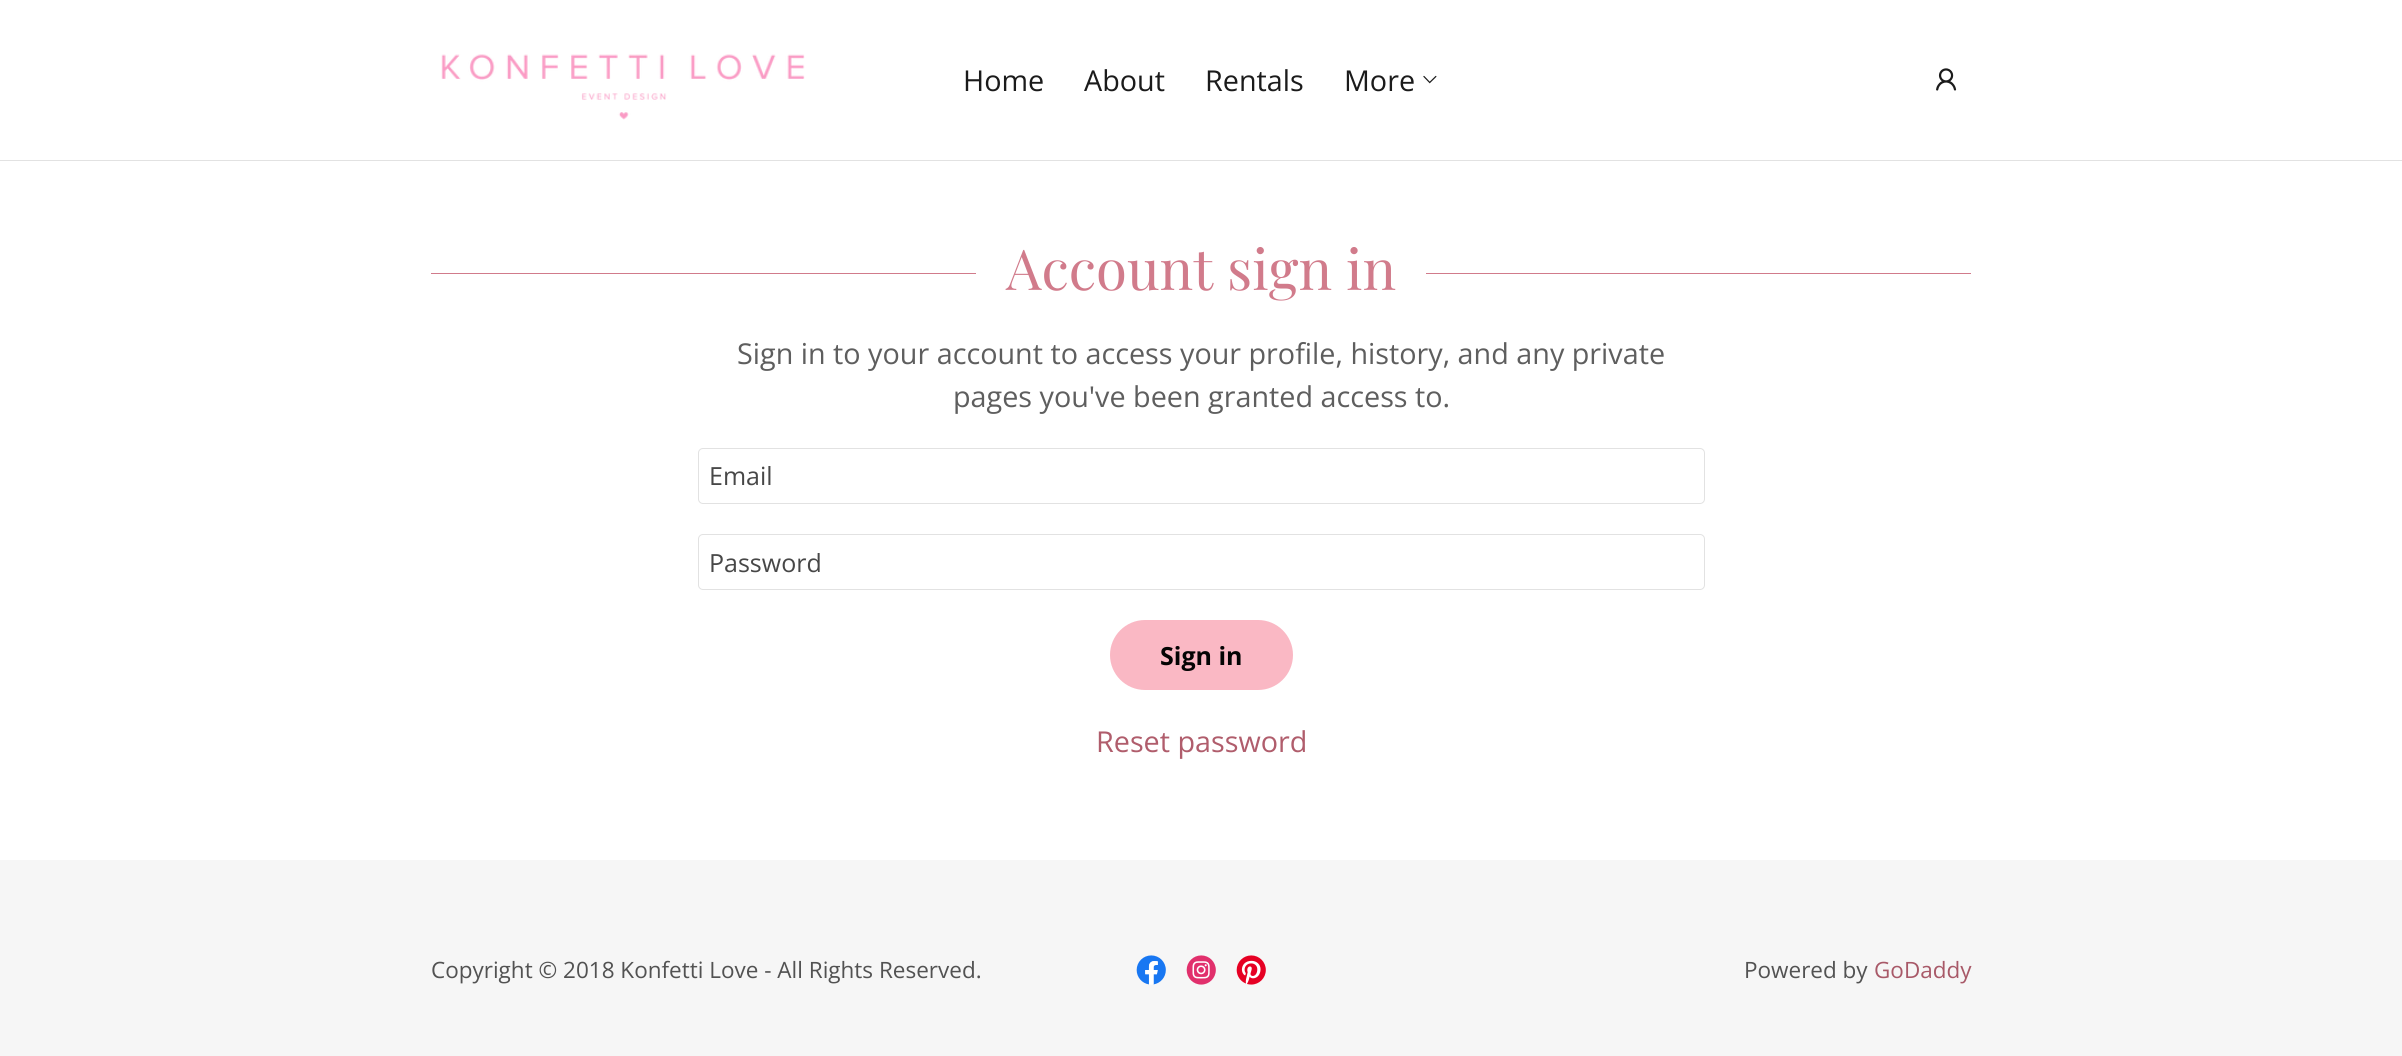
import math
import cairo



def rounded_rect(context, x, y, w, h, r):
    context.new_sub_path()
    for i, (u, v) in enumerate([(x + w - r, y + h - r), (x + r, y + h - r), (x + r, y + r), (x + w - r, y + r)]):
        context.arc(u, v, r, i * math.pi / 2, (i + 1) * math.pi / 2)
    context.close_path()


def draw_image(context, path, x, y, w, h):
    context.save()
    context.set_source_surface(cairo.ImageSurface.create_from_png(path), x, y)
    context.rectangle(x, y, w, h)
    context.fill()
    context.restore()


def draw(context):
    context.set_source_rgb(246 / 255, 246 / 255, 246 / 255)
    context.paint()
    context.set_source_rgb(1, 1, 1)
    context.rectangle(0, 0, 2402, 160)
    context.fill()
    draw_image(context, "images/1.png", 441, 54, 364, 66)
    draw_image(context, "images/2.png", 1423, 75, 14, 9)
    draw_image(context, "images/3.png", 1936, 68, 21, 23)
    context.set_source_rgb(226 / 255, 226 / 255, 226 / 255)
    context.rectangle(0, 160, 2402, 1)
    context.fill()
    context.set_source_rgb(1, 1, 1)
    context.rectangle(0, 161, 2402, 699)
    context.fill()
    context.set_source_rgb(209 / 255, 123 / 255, 139 / 255)
    context.rectangle(431, 273, 545, 1)
    context.fill()
    context.rectangle(1426, 273, 545, 1)
    context.fill()
    rounded_rect(context, 698.5, 448.5, 1006, 55, 4.5)
    context.set_source_rgb(226 / 255, 226 / 255, 226 / 255)
    context.set_line_width(1)
    context.stroke()
    rounded_rect(context, 698.5, 534.5, 1006, 55, 4.5)
    context.stroke()
    context.set_source_rgb(250 / 255, 184 / 255, 196 / 255)
    rounded_rect(context, 1110, 620, 183, 70, 35)
    context.fill()
    draw_image(context, "images/4.png", 1136, 955, 30, 30)
    draw_image(context, "images/5.png", 1186, 955, 30, 30)
    draw_image(context, "images/6.png", 1236, 955, 30, 30)
    context.select_font_face("Open Sans")
    context.set_font_size(28.75)
    context.set_source_rgb(27 / 255, 27 / 255, 27 / 255)
    context.move_to(963, 91)
    context.show_text("Home")
    context.move_to(1084, 91)
    context.show_text("About")
    context.move_to(1205, 91)
    context.show_text("Rentals")
    context.move_to(1344, 91)
    context.show_text("More")
    context.select_font_face("Playfair Display")
    context.set_font_size(56.25)
    context.set_source_rgb(209 / 255, 123 / 255, 139 / 255)
    context.move_to(1006, 290)
    context.show_text("Account sign in")
    context.select_font_face("Open Sans")
    context.set_font_size(28.75)
    context.set_source_rgb(94 / 255, 94 / 255, 94 / 255)
    context.move_to(737, 364)
    context.show_text("Sign in to your account to access your profile, history, and any private")
    context.move_to(953, 407)
    context.show_text("pages you've been granted access to.")
    context.set_font_size(25)
    context.set_source_rgb(71 / 255, 71 / 255, 71 / 255)
    context.move_to(709, 485)
    context.show_text("Email")
    context.move_to(709, 572)
    context.show_text("Password")
    context.select_font_face("Open Sans", cairo.FontSlant.NORMAL, cairo.FontWeight.BOLD)
    context.set_source_rgb(4 / 255, 4 / 255, 4 / 255)
    context.move_to(1160, 665)
    context.show_text("Sign in")
    context.select_font_face("Open Sans")
    context.set_font_size(28.75)
    context.set_source_rgb(176 / 255, 93 / 255, 108 / 255)
    context.move_to(1096, 752)
    context.show_text("Reset password")
    context.set_font_size(22.5)
    context.set_source_rgb(82 / 255, 82 / 255, 82 / 255)
    context.move_to(431, 978)
    context.show_text("Copyright © 2018 Konfetti Love - All Rights Reserved.")
    context.move_to(1744, 978)
    context.show_text("Powered by")
    context.set_source_rgb(168 / 255, 89 / 255, 104 / 255)
    context.move_to(1874, 978)
    context.show_text("GoDaddy")


surface = cairo.ImageSurface(cairo.Format.RGB24, 2402, 1056)
context = cairo.Context(surface)
options = cairo.FontOptions()
options.set_hint_metrics(cairo.HintMetrics.OFF)
options.set_hint_style(cairo.HintStyle.NONE)
context.set_font_options(options)
context.set_miter_limit(4)
draw(context)
surface.write_to_png("out.png")
